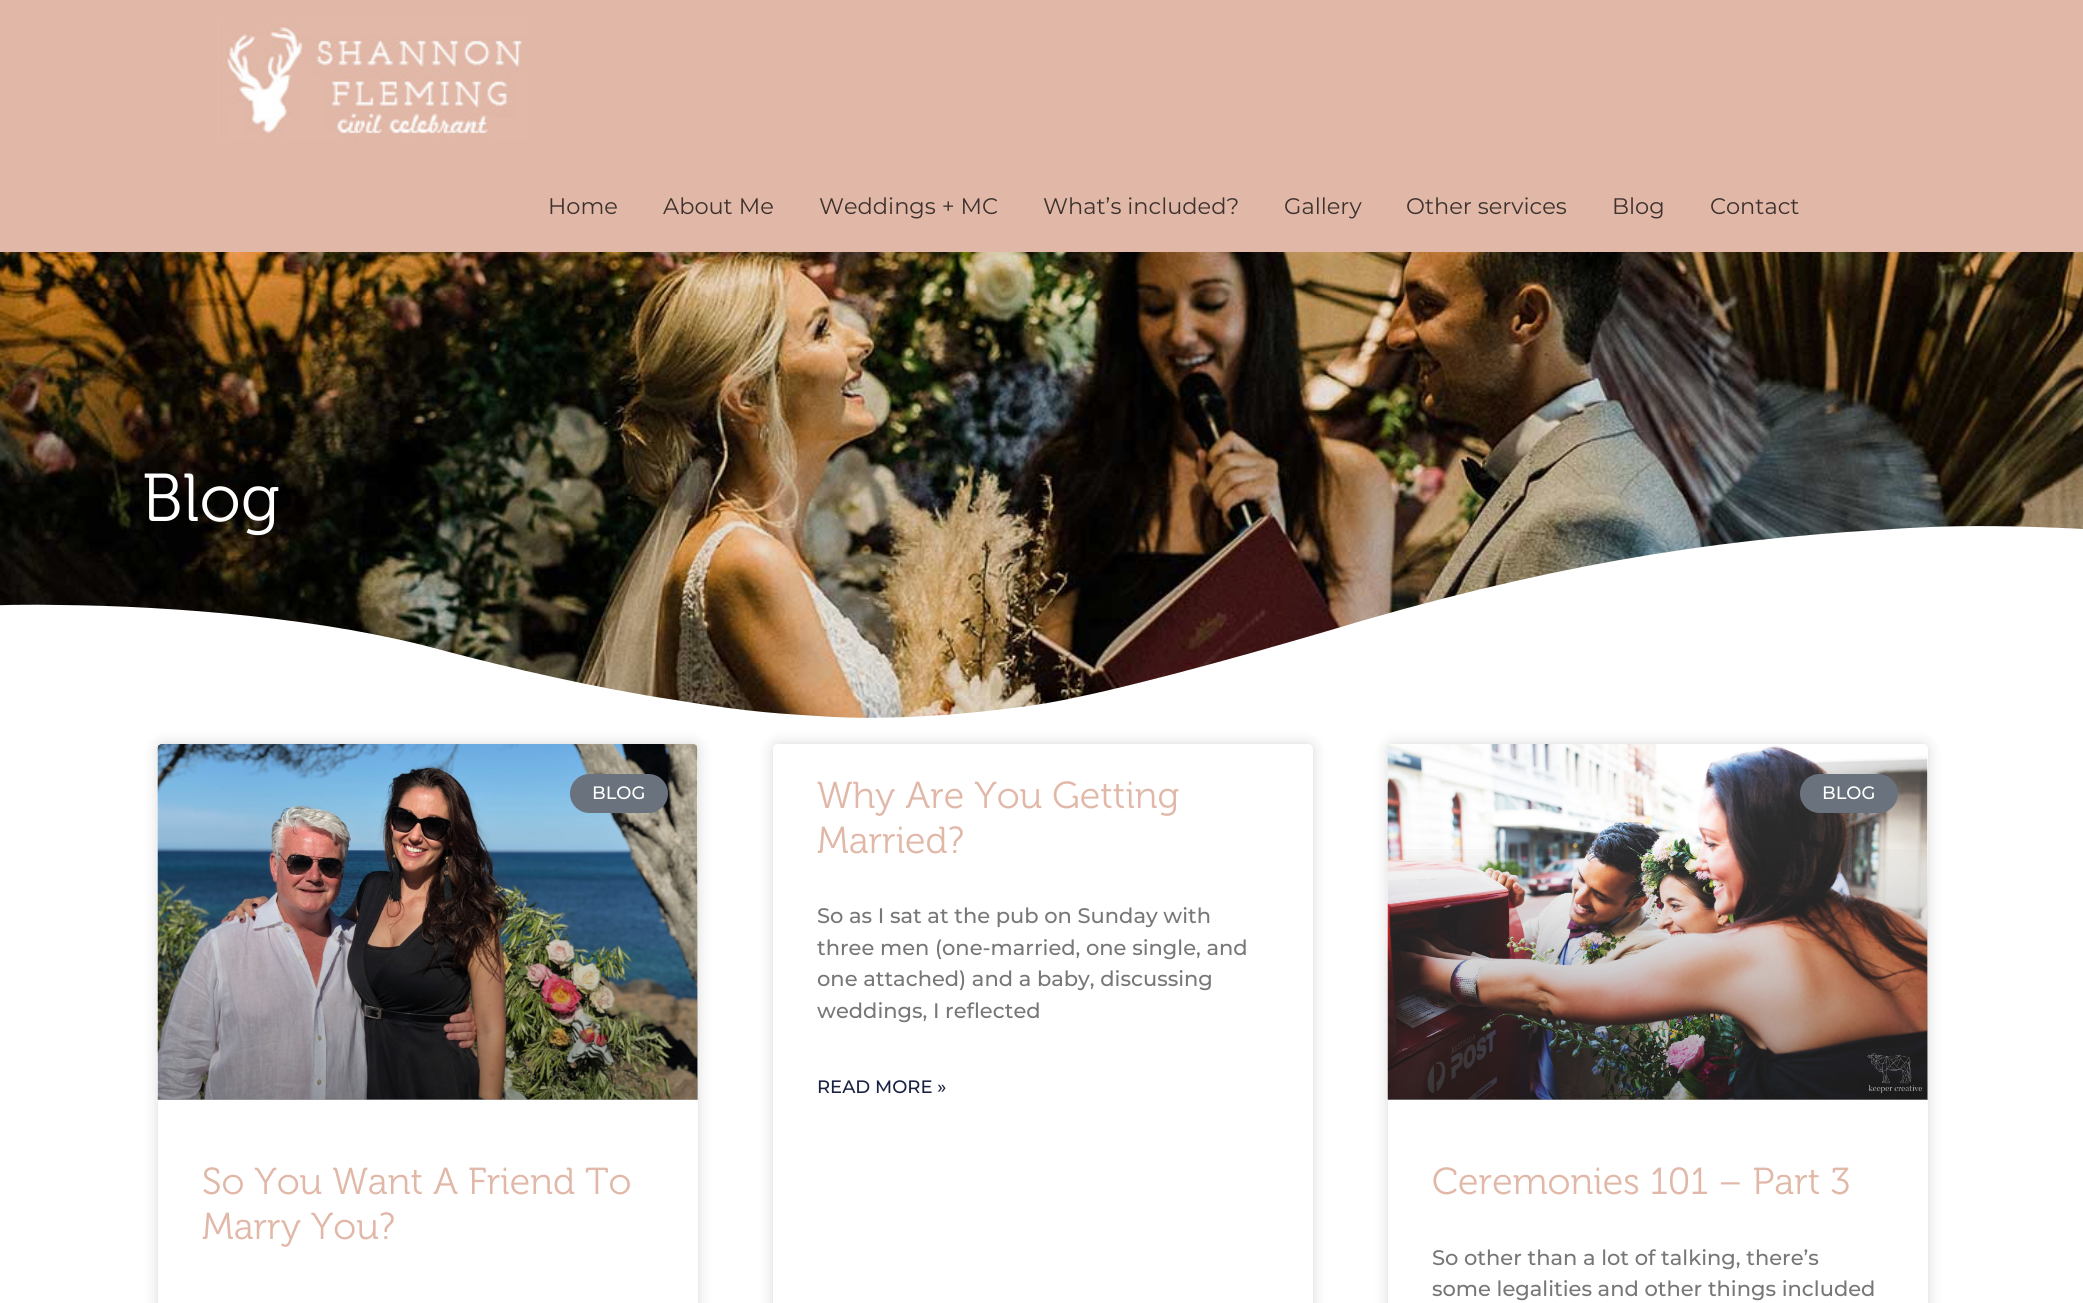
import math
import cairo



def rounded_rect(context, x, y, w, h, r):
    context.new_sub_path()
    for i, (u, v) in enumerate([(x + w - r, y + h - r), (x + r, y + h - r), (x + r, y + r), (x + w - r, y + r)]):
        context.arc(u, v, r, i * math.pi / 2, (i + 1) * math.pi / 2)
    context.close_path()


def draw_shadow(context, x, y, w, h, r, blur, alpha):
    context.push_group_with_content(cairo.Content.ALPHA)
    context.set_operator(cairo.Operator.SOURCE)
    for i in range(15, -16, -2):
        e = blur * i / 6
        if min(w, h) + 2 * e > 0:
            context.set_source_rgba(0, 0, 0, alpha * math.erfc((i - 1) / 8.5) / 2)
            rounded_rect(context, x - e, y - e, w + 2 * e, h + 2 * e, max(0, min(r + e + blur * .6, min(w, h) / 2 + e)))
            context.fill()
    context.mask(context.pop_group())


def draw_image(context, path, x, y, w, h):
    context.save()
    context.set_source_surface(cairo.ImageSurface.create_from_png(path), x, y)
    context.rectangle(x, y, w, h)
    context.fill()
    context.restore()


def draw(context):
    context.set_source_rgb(1, 1, 1)
    context.paint()
    context.set_source_rgb(225 / 255, 184 / 255, 168 / 255)
    context.rectangle(0, 0, 2083, 252)
    context.fill()
    draw_image(context, "images/1.png", 217, 22, 311, 118)
    draw_image(context, "images/2.png", 0, 252, 2083, 466)
    context.set_source_rgb(1, 1, 1)
    context.new_path()
    context.move_to(818, 716)
    context.curve_to(883, 721, 966, 715, 1035, 705)
    context.curve_to(1103, 695, 1239, 657, 1324, 632)
    context.curve_to(1542, 566, 1709, 540, 1878, 530)
    context.curve_to(1946, 525, 2018, 523, 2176, 535)
    context.curve_to(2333, 547, 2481, 587, 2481, 587)
    context.line_to(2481, 729)
    context.line_to(-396, 729)
    context.line_to(-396, 667)
    context.curve_to(-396, 667, -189, 600, 60, 605)
    context.curve_to(172, 606, 327, 618, 445, 651)
    context.curve_to(506, 667, 595, 688, 675, 700)
    context.curve_to(753, 713, 788, 714, 818, 716)
    context.close_path()
    context.fill()
    context.set_source_rgb(0, 0, 0)
    draw_shadow(context, 158, 744, 540, 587, 5, 7.5, 0.15)
    context.set_source_rgb(1, 1, 1)
    rounded_rect(context, 158, 744, 540, 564, 5)
    context.fill()
    draw_image(context, "images/3.png", 157, 744, 541, 356)
    gradient = cairo.LinearGradient(428, 1100, 428, 744)
    gradient.add_color_stop_rgba(0, 0, 0, 0, 0.35)
    gradient.add_color_stop_rgba(0.75, 0, 0, 0, 0)
    context.set_source(gradient)
    context.rectangle(158, 849, 540, 251)
    context.fill()
    context.set_source_rgb(105 / 255, 114 / 255, 125 / 255)
    rounded_rect(context, 570, 774, 98, 39, 19.5)
    context.fill()
    context.set_source_rgb(0, 0, 0)
    draw_shadow(context, 773, 744, 540, 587, 5, 7.5, 0.15)
    context.set_source_rgb(1, 1, 1)
    rounded_rect(context, 773, 744, 540, 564, 5)
    context.fill()
    context.set_source_rgb(0, 0, 0)
    draw_shadow(context, 1388, 744, 540, 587, 5, 7.5, 0.15)
    context.set_source_rgb(1, 1, 1)
    rounded_rect(context, 1388, 744, 540, 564, 5)
    context.fill()
    draw_image(context, "images/4.png", 1387, 744, 541, 356)
    gradient = cairo.LinearGradient(1658, 1100, 1658, 744)
    gradient.add_color_stop_rgba(0, 0, 0, 0, 0.35)
    gradient.add_color_stop_rgba(0.75, 0, 0, 0, 0)
    context.set_source(gradient)
    context.rectangle(1388, 849, 540, 251)
    context.fill()
    context.set_source_rgb(105 / 255, 114 / 255, 125 / 255)
    rounded_rect(context, 1800, 774, 98, 39, 19.5)
    context.fill()
    context.select_font_face("Montserrat")
    context.set_font_size(22.5)
    context.set_source_rgb(61 / 255, 50 / 255, 45 / 255)
    context.move_to(548, 214)
    context.show_text("Home")
    context.move_to(663, 214)
    context.show_text("About Me")
    context.move_to(819, 214)
    context.show_text("Weddings + MC")
    context.move_to(1043, 214)
    context.show_text("What’s included?")
    context.move_to(1284, 214)
    context.show_text("Gallery")
    context.move_to(1406, 214)
    context.show_text("Other services")
    context.move_to(1612, 214)
    context.show_text("Blog")
    context.move_to(1710, 214)
    context.show_text("Contact")
    context.select_font_face("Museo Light")
    context.set_font_size(67.5)
    context.set_source_rgb(1, 1, 1)
    context.move_to(142, 521)
    context.show_text("Blog")
    context.select_font_face("Montserrat Medium")
    context.set_font_size(18)
    context.move_to(592, 799)
    context.show_text("BLOG")
    context.select_font_face("Museo Light")
    context.set_font_size(37.5)
    context.set_source_rgb(225 / 255, 184 / 255, 168 / 255)
    context.move_to(202, 1194)
    context.show_text("So You Want A Friend To")
    context.move_to(202, 1239)
    context.show_text("Marry You?")
    context.move_to(817, 808)
    context.show_text("Why Are You Getting")
    context.move_to(817, 853)
    context.show_text("Married?")
    context.select_font_face("Montserrat Medium")
    context.set_font_size(21)
    context.set_source_rgb(119 / 255, 119 / 255, 119 / 255)
    context.move_to(817, 923)
    context.show_text("So as I sat at the pub on Sunday with")
    context.move_to(817, 955)
    context.show_text("three men (one-married, one single, and")
    context.move_to(817, 986)
    context.show_text("one attached) and a baby, discussing")
    context.move_to(817, 1018)
    context.show_text("weddings, I reflected")
    context.set_font_size(18)
    context.set_source_rgb(26 / 255, 32 / 255, 65 / 255)
    context.move_to(817, 1093)
    context.show_text("READ MORE »")
    context.set_source_rgb(1, 1, 1)
    context.move_to(1822, 799)
    context.show_text("BLOG")
    context.select_font_face("Museo Light")
    context.set_font_size(37.5)
    context.set_source_rgb(225 / 255, 184 / 255, 168 / 255)
    context.move_to(1432, 1194)
    context.show_text("Ceremonies 101 – Part 3")
    context.select_font_face("Montserrat Medium")
    context.set_font_size(21)
    context.set_source_rgb(119 / 255, 119 / 255, 119 / 255)
    context.move_to(1432, 1265)
    context.show_text("So other than a lot of talking, there’s")
    context.move_to(1432, 1296)
    context.show_text("some legalities and other things included")


surface = cairo.ImageSurface(cairo.Format.RGB24, 2083, 1303)
context = cairo.Context(surface)
options = cairo.FontOptions()
options.set_hint_metrics(cairo.HintMetrics.OFF)
options.set_hint_style(cairo.HintStyle.NONE)
context.set_font_options(options)
context.set_miter_limit(4)
draw(context)
surface.write_to_png("out.png")
